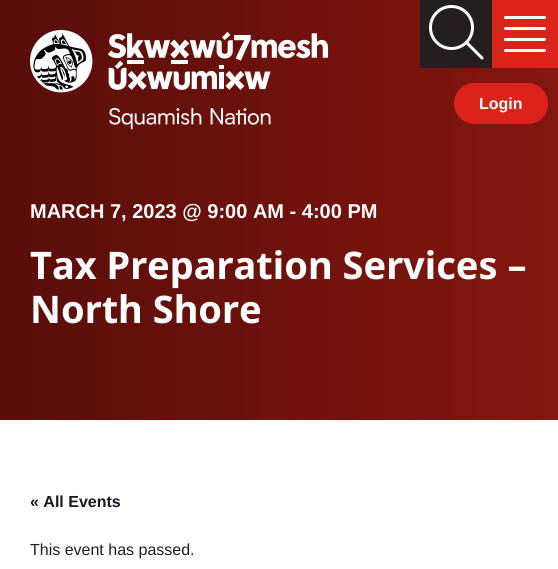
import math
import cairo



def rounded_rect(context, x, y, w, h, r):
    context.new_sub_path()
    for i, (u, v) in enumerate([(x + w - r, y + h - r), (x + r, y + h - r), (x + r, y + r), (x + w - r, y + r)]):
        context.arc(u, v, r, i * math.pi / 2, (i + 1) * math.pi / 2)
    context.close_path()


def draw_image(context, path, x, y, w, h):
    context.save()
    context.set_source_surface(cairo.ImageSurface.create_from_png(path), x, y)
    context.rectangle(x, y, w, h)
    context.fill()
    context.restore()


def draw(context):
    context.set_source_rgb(1, 1, 1)
    context.paint()
    gradient = cairo.LinearGradient(0, 210, 558, 210)
    gradient.add_color_stop_rgba(0, 88 / 255, 14 / 255, 10 / 255, 1)
    gradient.add_color_stop_rgba(1, 132 / 255, 22 / 255, 15 / 255, 1)
    context.set_source(gradient)
    context.rectangle(0, 0, 558, 420)
    context.fill()
    draw_image(context, "images/1.png", 30, 30, 299, 100)
    context.set_source_rgb(35 / 255, 31 / 255, 32 / 255)
    context.rectangle(420, 0, 72, 68)
    context.fill()
    context.arc(451.5, 27.5, 21, 0, 2 * math.pi)
    context.set_source_rgb(1, 1, 1)
    context.set_line_width(3)
    context.stroke()
    context.new_path()
    context.move_to(482, 58)
    context.line_to(466.5, 42.5)
    context.set_line_cap(cairo.LineCap.ROUND)
    context.set_line_join(cairo.LineJoin.ROUND)
    context.stroke()
    context.set_source_rgb(219 / 255, 36 / 255, 25 / 255)
    context.rectangle(492, 0, 66, 68)
    context.fill()
    context.set_source_rgb(1, 1, 1)
    rounded_rect(context, 504, 16, 42, 3, 1.5)
    context.fill()
    rounded_rect(context, 504, 27, 42, 3, 1.5)
    context.fill()
    rounded_rect(context, 504, 38, 42, 3, 1.5)
    context.fill()
    rounded_rect(context, 504, 49, 42, 3, 1.5)
    context.fill()
    context.set_source_rgb(219 / 255, 36 / 255, 25 / 255)
    rounded_rect(context, 454, 83, 94, 41, 20.5)
    context.fill()
    context.select_font_face("Liberation Sans", cairo.FontSlant.NORMAL, cairo.FontWeight.BOLD)
    context.set_font_size(16)
    context.set_source_rgb(1, 1, 1)
    context.move_to(479, 109)
    context.show_text("Login")
    context.set_font_size(20)
    context.move_to(30, 218)
    context.show_text("MARCH 7, 2023 @ 9:00 AM - 4:00 PM")
    context.select_font_face("Noto Sans", cairo.FontSlant.NORMAL, cairo.FontWeight.BOLD)
    context.set_font_size(38)
    context.move_to(30, 279)
    context.show_text("Tax Preparation Services –")
    context.move_to(30, 323)
    context.show_text("North Shore")
    context.select_font_face("Liberation Sans", cairo.FontSlant.NORMAL, cairo.FontWeight.BOLD)
    context.set_font_size(16)
    context.set_source_rgb(20 / 255, 24 / 255, 39 / 255)
    context.move_to(30, 507)
    context.show_text("« All Events")
    context.select_font_face("Liberation Sans")
    context.set_source_rgb(35 / 255, 31 / 255, 32 / 255)
    context.move_to(30, 555)
    context.show_text("This event has passed.")


surface = cairo.ImageSurface(cairo.Format.RGB24, 558, 569)
context = cairo.Context(surface)
options = cairo.FontOptions()
options.set_hint_metrics(cairo.HintMetrics.OFF)
options.set_hint_style(cairo.HintStyle.NONE)
context.set_font_options(options)
context.set_miter_limit(4)
draw(context)
surface.write_to_png("out.png")
